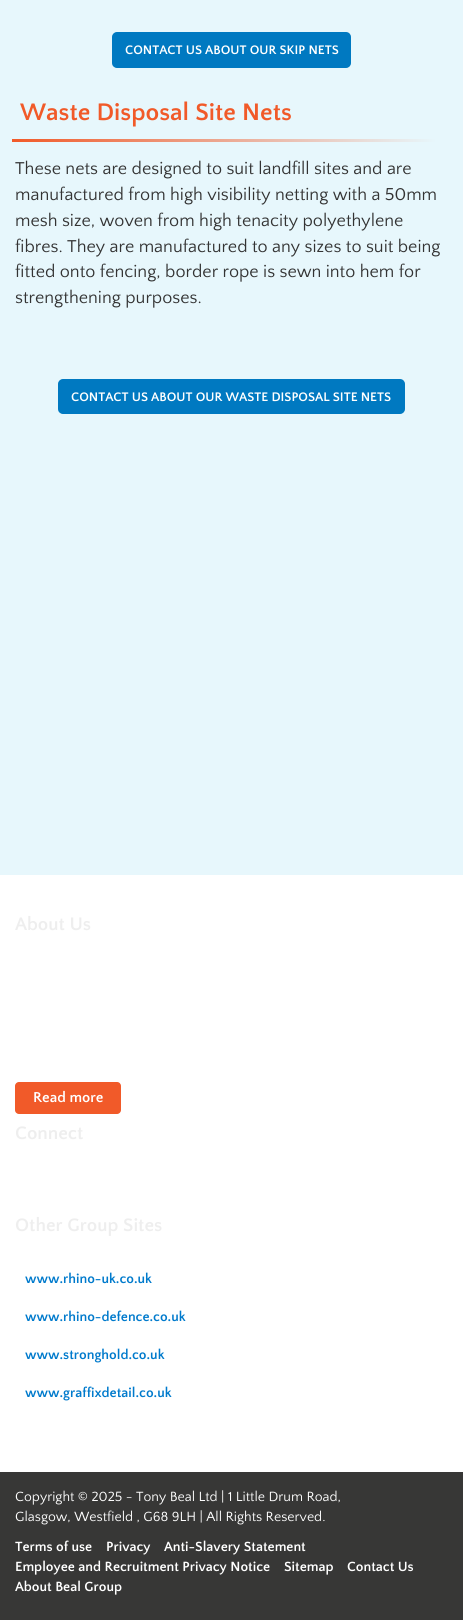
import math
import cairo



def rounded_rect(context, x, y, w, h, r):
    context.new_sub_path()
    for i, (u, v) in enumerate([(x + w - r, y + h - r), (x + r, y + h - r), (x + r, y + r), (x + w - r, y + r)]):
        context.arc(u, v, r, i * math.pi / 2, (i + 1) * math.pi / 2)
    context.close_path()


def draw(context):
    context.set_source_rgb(1, 1, 1)
    context.paint()
    context.set_source_rgb(231 / 255, 247 / 255, 252 / 255)
    context.rectangle(0, 0, 463, 875)
    context.fill()
    context.set_source_rgb(0, 121 / 255, 193 / 255)
    rounded_rect(context, 113, 33, 237, 34, 4)
    context.fill_preserve()
    context.stroke()
    gradient = cairo.LinearGradient(12, 141, 436, 141)
    gradient.add_color_stop_rgba(0, 241 / 255, 90 / 255, 41 / 255, 1)
    gradient.add_color_stop_rgba(1, 231 / 255, 247 / 255, 252 / 255, 1)
    context.set_source(gradient)
    context.rectangle(12, 139, 424, 3)
    context.fill()
    context.set_source_rgb(0, 121 / 255, 193 / 255)
    rounded_rect(context, 59, 380, 345, 33, 4)
    context.fill_preserve()
    context.stroke()
    context.set_source_rgb(241 / 255, 90 / 255, 41 / 255)
    rounded_rect(context, 15, 1082, 106, 32, 4)
    context.fill()
    context.set_source_rgb(55 / 255, 55 / 255, 54 / 255)
    context.rectangle(0, 1472, 463, 148)
    context.fill()
    context.select_font_face("Quattrocento Sans", cairo.FontSlant.NORMAL, cairo.FontWeight.BOLD)
    context.set_font_size(13)
    context.set_source_rgb(1, 1, 1)
    context.move_to(125, 54)
    context.show_text("CONTACT US ABOUT OUR SKIP NETS")
    context.set_font_size(25)
    context.set_source_rgb(241 / 255, 90 / 255, 41 / 255)
    context.move_to(20, 120)
    context.show_text("Waste Disposal Site Nets")
    context.select_font_face("Quattrocento Sans")
    context.set_font_size(18)
    context.set_source_rgb(51 / 255, 51 / 255, 51 / 255)
    context.move_to(15, 174)
    context.show_text("These nets are designed to suit landfill sites and are")
    context.move_to(15, 200)
    context.show_text("manufactured from high visibility netting with a 50mm")
    context.move_to(15, 226)
    context.show_text("mesh size, woven from high tenacity polyethylene")
    context.move_to(15, 252)
    context.show_text("fibres. They are manufactured to any sizes to suit being")
    context.move_to(15, 277)
    context.show_text("fitted onto fencing, border rope is sewn into hem for")
    context.move_to(15, 303)
    context.show_text("strengthening purposes.")
    context.select_font_face("Quattrocento Sans", cairo.FontSlant.NORMAL, cairo.FontWeight.BOLD)
    context.set_font_size(13)
    context.set_source_rgb(1, 1, 1)
    context.move_to(71, 401)
    context.show_text("CONTACT US ABOUT OUR WASTE DISPOSAL SITE NETS")
    context.set_font_size(19)
    context.set_source_rgb(238 / 255, 238 / 255, 238 / 255)
    context.move_to(15, 930)
    context.show_text("About Us")
    context.set_font_size(15)
    context.set_source_rgb(1, 1, 1)
    context.move_to(33, 1102)
    context.show_text("Read more")
    context.set_font_size(19)
    context.set_source_rgb(238 / 255, 238 / 255, 238 / 255)
    context.move_to(15, 1139)
    context.show_text("Connect")
    context.move_to(15, 1231)
    context.show_text("Other Group Sites")
    context.set_font_size(14)
    context.set_source_rgb(0, 122 / 255, 204 / 255)
    context.move_to(25, 1283)
    context.show_text("www.rhino-uk.co.uk")
    context.move_to(25, 1321)
    context.show_text("www.rhino-defence.co.uk")
    context.move_to(25, 1359)
    context.show_text("www.stronghold.co.uk")
    context.move_to(25, 1397)
    context.show_text("www.graffixdetail.co.uk")
    context.select_font_face("Quattrocento Sans")
    context.set_source_rgb(1, 1, 1)
    context.move_to(15, 1501)
    context.show_text("Copyright © 2025 - Tony Beal Ltd | 1 Little Drum Road,")
    context.move_to(15, 1521)
    context.show_text("Glasgow, Westfield , G68 9LH | All Rights Reserved.")
    context.select_font_face("Quattrocento Sans", cairo.FontSlant.NORMAL, cairo.FontWeight.BOLD)
    context.move_to(15, 1551)
    context.show_text("Terms of use")
    context.move_to(106, 1551)
    context.show_text("Privacy")
    context.move_to(164, 1551)
    context.show_text("Anti-Slavery Statement")
    context.move_to(15, 1571)
    context.show_text("Employee and Recruitment Privacy Notice")
    context.move_to(284, 1571)
    context.show_text("Sitemap")
    context.move_to(347, 1571)
    context.show_text("Contact Us")
    context.move_to(15, 1591)
    context.show_text("About Beal Group")


surface = cairo.ImageSurface(cairo.Format.RGB24, 463, 1620)
context = cairo.Context(surface)
options = cairo.FontOptions()
options.set_hint_metrics(cairo.HintMetrics.OFF)
options.set_hint_style(cairo.HintStyle.NONE)
context.set_font_options(options)
context.set_miter_limit(4)
draw(context)
surface.write_to_png("out.png")
